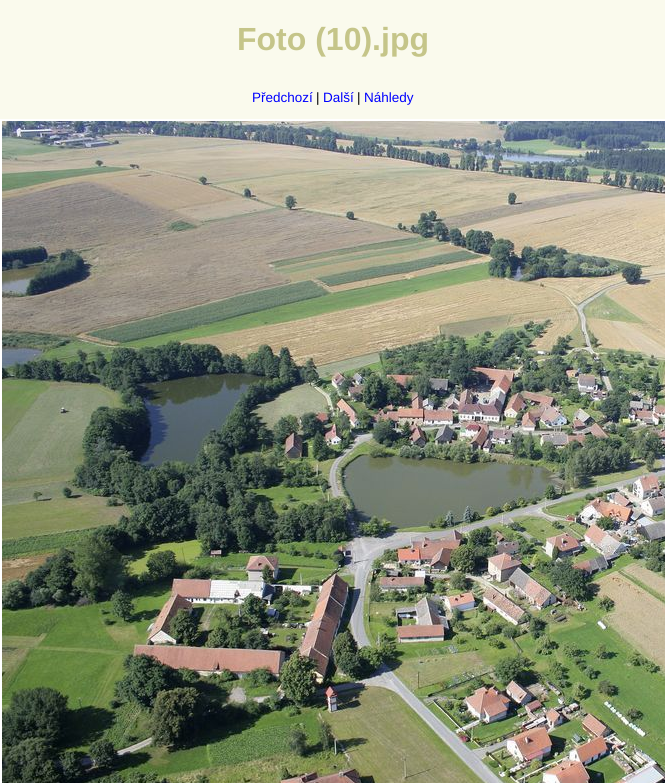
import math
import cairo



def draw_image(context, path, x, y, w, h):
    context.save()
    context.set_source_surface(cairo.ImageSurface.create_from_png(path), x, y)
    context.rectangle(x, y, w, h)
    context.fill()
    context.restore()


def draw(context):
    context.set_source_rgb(250 / 255, 250 / 255, 237 / 255)
    context.paint()
    context.set_source_rgb(1, 1, 1)
    context.rectangle(0, 119, 665, 664)
    context.fill()
    draw_image(context, "images/1.png", 2, 121, 663, 662)
    context.select_font_face("Liberation Sans", cairo.FontSlant.NORMAL, cairo.FontWeight.BOLD)
    context.set_font_size(32)
    context.set_source_rgb(197 / 255, 197 / 255, 137 / 255)
    context.move_to(237, 50)
    context.show_text("Foto (10).jpg")
    context.select_font_face("Liberation Sans")
    context.set_font_size(13.5)
    context.set_source_rgb(0, 0, 1)
    context.move_to(252, 102)
    context.show_text("Předchozí")
    context.set_source_rgb(0, 0, 0)
    context.move_to(316, 102)
    context.show_text("|")
    context.set_source_rgb(0, 0, 1)
    context.move_to(323, 102)
    context.show_text("Další")
    context.set_source_rgb(0, 0, 0)
    context.move_to(357, 102)
    context.show_text("|")
    context.set_source_rgb(0, 0, 1)
    context.move_to(364, 102)
    context.show_text("Náhledy")


surface = cairo.ImageSurface(cairo.Format.RGB24, 665, 783)
context = cairo.Context(surface)
options = cairo.FontOptions()
options.set_hint_metrics(cairo.HintMetrics.OFF)
options.set_hint_style(cairo.HintStyle.NONE)
context.set_font_options(options)
context.set_miter_limit(4)
draw(context)
surface.write_to_png("out.png")
